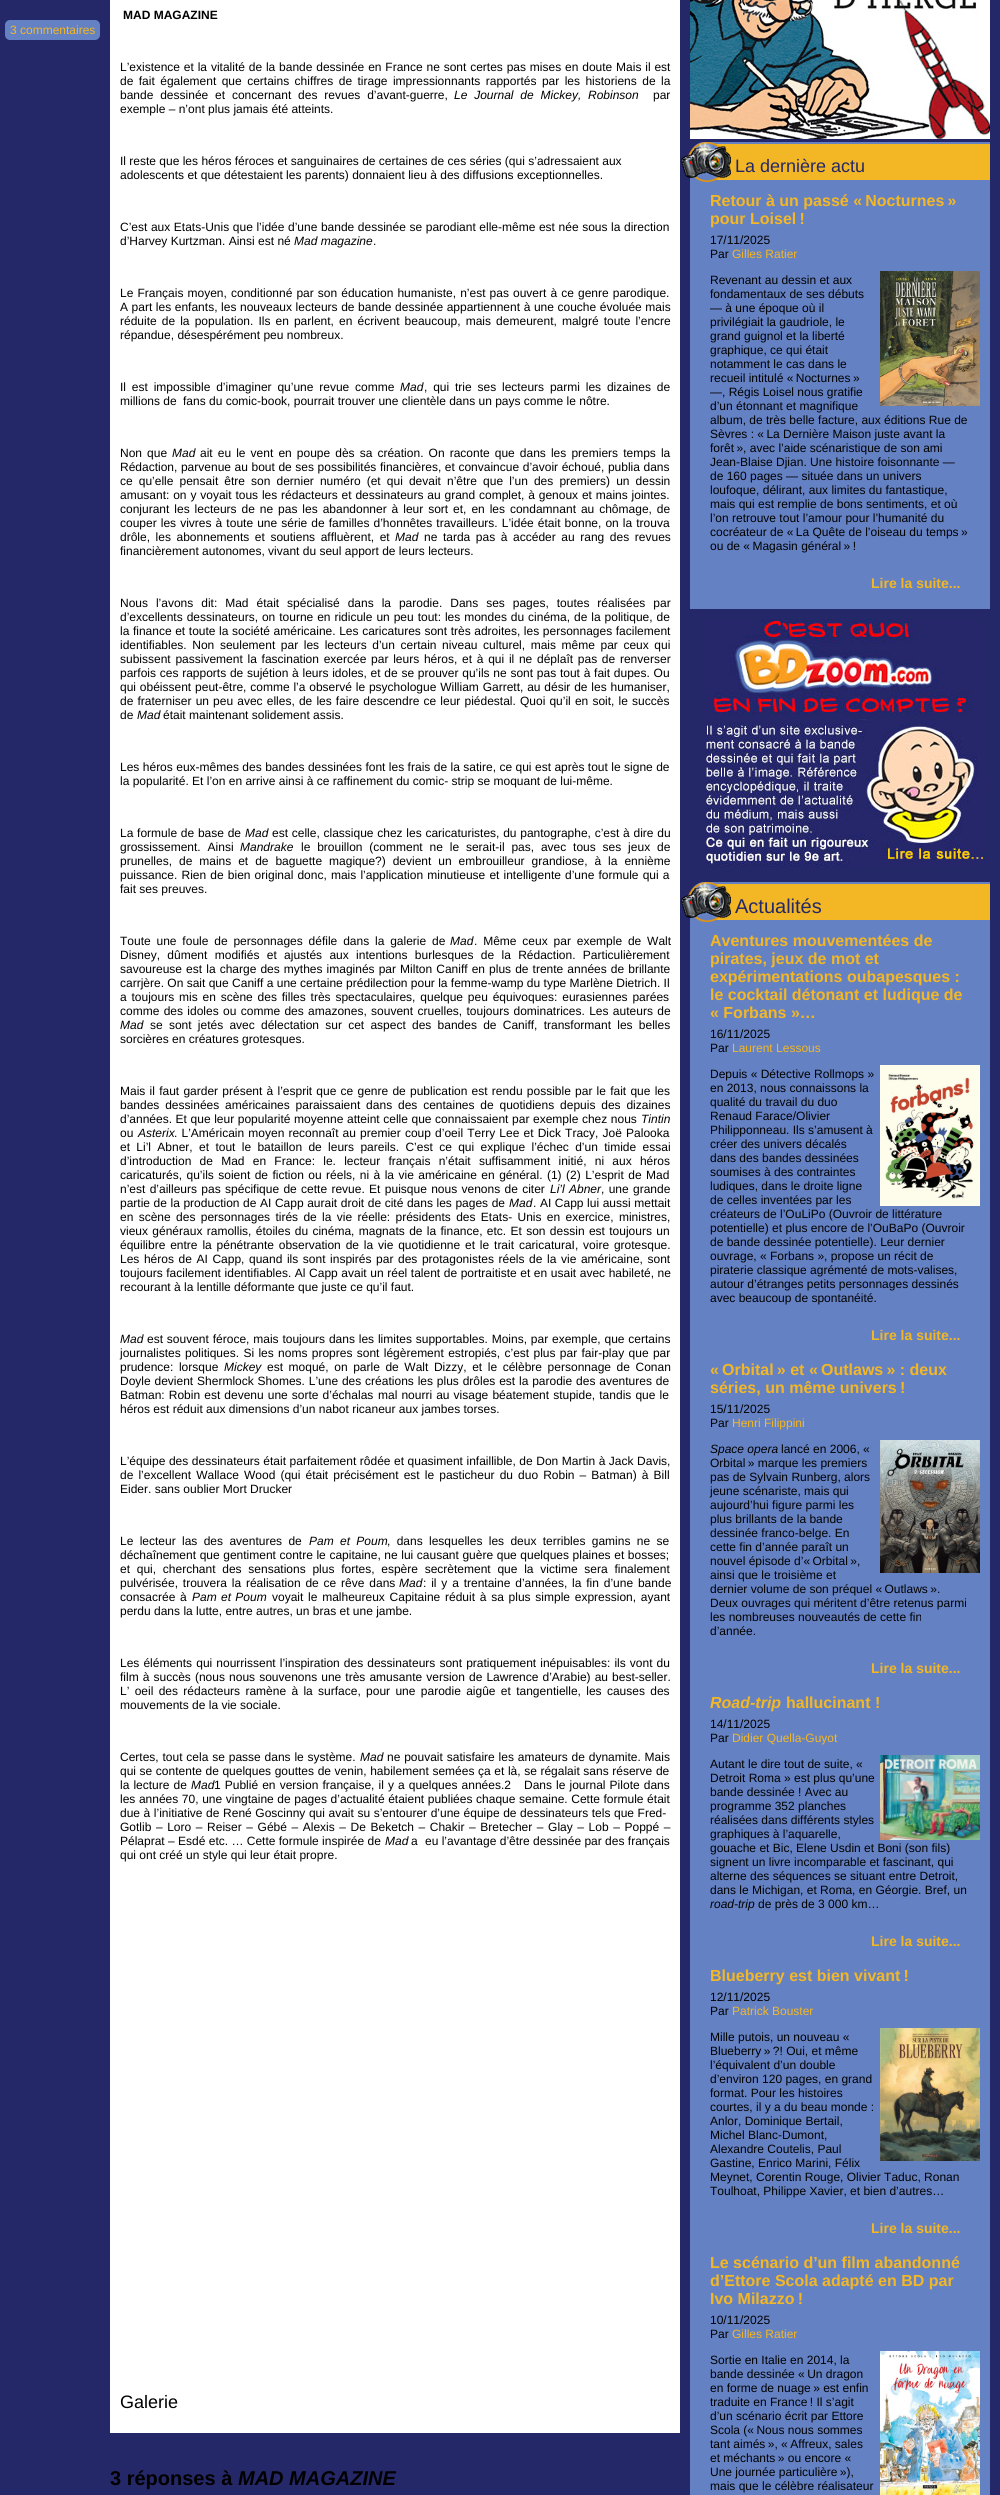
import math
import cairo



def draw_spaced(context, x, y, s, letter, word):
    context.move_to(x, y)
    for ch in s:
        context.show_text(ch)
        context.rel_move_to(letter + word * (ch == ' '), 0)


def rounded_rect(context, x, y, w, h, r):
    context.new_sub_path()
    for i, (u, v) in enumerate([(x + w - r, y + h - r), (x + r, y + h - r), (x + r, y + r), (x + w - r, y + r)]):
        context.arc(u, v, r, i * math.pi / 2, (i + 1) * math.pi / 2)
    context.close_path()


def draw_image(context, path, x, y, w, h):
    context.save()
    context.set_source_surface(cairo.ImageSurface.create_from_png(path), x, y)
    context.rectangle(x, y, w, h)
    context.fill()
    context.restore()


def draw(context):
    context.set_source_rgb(37 / 255, 40 / 255, 104 / 255)
    context.paint()
    context.set_source_rgb(100 / 255, 129 / 255, 195 / 255)
    rounded_rect(context, 5, 20, 95, 20, 5)
    context.fill()
    context.set_source_rgb(1, 1, 1)
    context.rectangle(110, 0, 570, 2433)
    context.fill()
    draw_image(context, "images/1.png", 690, 0, 300, 139)
    context.set_source_rgb(100 / 255, 129 / 255, 195 / 255)
    context.new_path()
    context.move_to(705, 142)
    context.line_to(990, 142)
    context.line_to(990, 609)
    context.line_to(690, 609)
    context.line_to(690, 157)
    context.curve_to(690, 148.5, 696.5, 142, 705, 142)
    context.close_path()
    context.fill()
    context.set_source_rgb(243 / 255, 183 / 255, 37 / 255)
    context.rectangle(715, 144, 275, 36)
    context.fill()
    draw_image(context, "images/2.png", 681, 142, 50, 40)
    draw_image(context, "images/3.png", 880, 271, 100, 135)
    draw_image(context, "images/4.png", 706, 619, 280, 248)
    context.set_source_rgb(100 / 255, 129 / 255, 195 / 255)
    context.new_path()
    context.move_to(705, 882)
    context.line_to(990, 882)
    context.line_to(990, 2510)
    context.line_to(690, 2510)
    context.line_to(690, 897)
    context.curve_to(690, 888.5, 696.5, 882, 705, 882)
    context.close_path()
    context.fill()
    context.set_source_rgb(243 / 255, 183 / 255, 37 / 255)
    context.rectangle(715, 884, 275, 36)
    context.fill()
    draw_image(context, "images/2.png", 681, 882, 50, 40)
    draw_image(context, "images/5.png", 880, 1065, 100, 141)
    draw_image(context, "images/6.png", 880, 1440, 100, 133)
    draw_image(context, "images/7.png", 880, 1755, 100, 85)
    draw_image(context, "images/8.png", 880, 2028, 100, 133)
    draw_image(context, "images/9.png", 880, 2351, 100, 144)
    context.select_font_face("Liberation Sans")
    context.set_font_size(12)
    context.move_to(10, 34)
    context.show_text("3 commentaires")
    context.select_font_face("Liberation Sans", cairo.FontSlant.NORMAL, cairo.FontWeight.BOLD)
    context.set_source_rgb(0, 0, 0)
    context.move_to(123, 19)
    context.show_text("MAD MAGAZINE")
    context.select_font_face("Liberation Sans")
    draw_spaced(context, 120, 71, "L’existence et la vitalité de la bande dessinée en France ne sont certes pas mises en doute Mais il est", 0, 0.5)
    draw_spaced(context, 120, 85, "de fait également que certains chiffres de tirage impressionnants rapportés par les historiens de la", 0, 2.1)
    draw_spaced(context, 120, 99, "bande dessinée et concernant des revues d’avant-guerre,", 0, 3.5)
    context.select_font_face("Liberation Sans", cairo.FontSlant.ITALIC)
    draw_spaced(context, 454, 99, "Le Journal de Mickey,", 0, 3.5)
    context.move_to(588, 99)
    context.show_text("Robinson")
    context.select_font_face("Liberation Sans")
    context.move_to(653, 99)
    context.show_text("par")
    context.move_to(120, 113)
    context.show_text("exemple – n’ont plus jamais été atteints.")
    context.move_to(120, 165)
    context.show_text("Il reste que les héros féroces et sanguinaires de certaines de ces séries (qui s’adressaient aux")
    context.move_to(120, 179)
    context.show_text("adolescents et que détestaient les parents) donnaient lieu à des diffusions exceptionnelles.")
    draw_spaced(context, 120, 231, "C’est aux Etats-Unis que l’idée d’une bande dessinée se parodiant elle-même est née sous la direction", 0, 0.25)
    context.move_to(120, 245)
    context.show_text("d’Harvey Kurtzman. Ainsi est né")
    context.select_font_face("Liberation Sans", cairo.FontSlant.ITALIC)
    context.move_to(294, 245)
    context.show_text("Mad magazine")
    context.select_font_face("Liberation Sans")
    context.move_to(373, 245)
    context.show_text(".")
    draw_spaced(context, 120, 297, "Le Français moyen, conditionné par son éducation humaniste, n’est pas ouvert à ce genre parodique.", 0, 0.75)
    draw_spaced(context, 120, 311, "A part les enfants, les nouveaux lecteurs de bande dessinée appartiennent à une couche évoluée mais", 0, 0.25)
    draw_spaced(context, 120, 325, "réduite de la population. Ils en parlent, en écrivent beaucoup, mais demeurent, malgré toute l’encre", 0, 1.75)
    context.move_to(120, 339)
    context.show_text("répandue, désespérément peu nombreux.")
    draw_spaced(context, 120, 391, "Il est impossible d’imaginer qu’une revue comme", 0, 2.5)
    context.select_font_face("Liberation Sans", cairo.FontSlant.ITALIC)
    context.move_to(400, 391)
    context.show_text("Mad")
    context.select_font_face("Liberation Sans")
    draw_spaced(context, 424, 391, ", qui trie ses lecteurs parmi les dizaines de", 0, 2.5)
    context.move_to(120, 405)
    context.show_text("millions de")
    context.move_to(183, 405)
    context.show_text("fans du comic-book, pourrait trouver une clientèle dans un pays comme le nôtre.")
    draw_spaced(context, 120, 457, "Non que", 0, 1.75)
    context.select_font_face("Liberation Sans", cairo.FontSlant.ITALIC)
    context.move_to(172, 457)
    context.show_text("Mad")
    context.select_font_face("Liberation Sans")
    draw_spaced(context, 200, 457, "ait eu le vent en poupe dès sa création. On raconte que dans les premiers temps la", 0, 1.75)
    draw_spaced(context, 120, 471, "Rédaction, parvenue au bout de ses possibilités financières, et convaincue d’avoir échoué, publia dans", 0, 0.25)
    draw_spaced(context, 120, 485, "ce qu’elle pensait être son dernier numéro (et qui devait n’être que l’un des premiers) un dessin", 0, 2.75)
    draw_spaced(context, 120, 499, "amusant: on y voyait tous les rédacteurs et dessinateurs au grand complet, à genoux et mains jointes.", 0, 0.5)
    draw_spaced(context, 120, 513, "conjurant les lecteurs de ne pas les abandonner à leur sort et, en les condamnant au chômage, de", 0, 1.6)
    draw_spaced(context, 120, 527, "couper les vivres à toute une série de familles d’honnêtes travailleurs. L’idée était bonne, on la trouva", 0, 0.75)
    draw_spaced(context, 120, 541, "drôle, les abonnements et soutiens affluèrent, et", 0, 2.25)
    context.select_font_face("Liberation Sans", cairo.FontSlant.ITALIC)
    context.move_to(395, 541)
    context.show_text("Mad")
    context.select_font_face("Liberation Sans")
    draw_spaced(context, 424, 541, "ne tarda pas à accéder au rang des revues", 0, 2.25)
    context.move_to(120, 555)
    context.show_text("financièrement autonomes, vivant du seul apport de leurs lecteurs.")
    draw_spaced(context, 120, 607, "Nous l’avons dit: Mad était spécialisé dans la parodie. Dans ses pages, toutes réalisées par", 0, 4.6)
    draw_spaced(context, 120, 621, "d’excellents dessinateurs, on tourne en ridicule un peu tout: les mondes du cinéma, de la politique, de", 0, 0.6)
    draw_spaced(context, 120, 635, "la finance et toute la société américaine. Les caricatures sont très adroites, les personnages facilement", 0, 0.25)
    draw_spaced(context, 120, 649, "identifiables. Non seulement par les lecteurs d’un certain niveau culturel, mais même par ceux qui", 0, 2.25)
    draw_spaced(context, 120, 663, "subissent passivement la fascination exercée par leurs héros, et à qui il ne déplaît pas de renverser", 0, 1.4)
    draw_spaced(context, 120, 677, "parfois ces rapports de sujétion à leurs idoles, et de se prouver qu’ils ne sont pas tout à fait dupes. Ou", 0, 0.4)
    draw_spaced(context, 120, 691, "qui obéissent peut-être, comme l’a observé le psychologue William Garrett, au désir de les humaniser,", 0, 0.5)
    draw_spaced(context, 120, 705, "de fraterniser un peu avec elles, de les faire descendre ce leur piédestal. Quoi qu’il en soit, le succès", 0, 0.8)
    context.move_to(120, 719)
    context.show_text("de")
    context.select_font_face("Liberation Sans", cairo.FontSlant.ITALIC)
    context.move_to(137, 719)
    context.show_text("Mad")
    context.select_font_face("Liberation Sans")
    context.move_to(163, 719)
    context.show_text("était maintenant solidement assis.")
    draw_spaced(context, 120, 771, "Les héros eux-mêmes des bandes dessinées font les frais de la satire, ce qui est après tout le signe de", 0, 0.1)
    context.move_to(120, 785)
    context.show_text("la popularité. Et l’on en arrive ainsi à ce raffinement du comic- strip se moquant de lui-même.")
    draw_spaced(context, 120, 837, "La formule de base de", 0, 0.4)
    context.select_font_face("Liberation Sans", cairo.FontSlant.ITALIC)
    context.move_to(245, 837)
    context.show_text("Mad")
    context.select_font_face("Liberation Sans")
    draw_spaced(context, 272, 837, "est celle, classique chez les caricaturistes, du pantographe, c’est à dire du", 0, 0.4)
    draw_spaced(context, 120, 851, "grossissement. Ainsi", 0, 3.5)
    context.select_font_face("Liberation Sans", cairo.FontSlant.ITALIC)
    context.move_to(240, 851)
    context.show_text("Mandrake")
    context.select_font_face("Liberation Sans")
    draw_spaced(context, 301, 851, "le brouillon (comment ne le serait-il pas, avec tous ses jeux de", 0, 3.5)
    draw_spaced(context, 120, 865, "prunelles, de mains et de baguette magique?) devient un embrouilleur grandiose, à la ennième", 0, 3.6)
    draw_spaced(context, 120, 879, "puissance. Rien de bien original donc, mais l’application minutieuse et intelligente d’une formule qui a", 0, 0.8)
    context.move_to(120, 893)
    context.show_text("fait ses preuves.")
    draw_spaced(context, 120, 945, "Toute une foule de personnages défile dans la galerie de", 0, 2.5)
    context.select_font_face("Liberation Sans", cairo.FontSlant.ITALIC)
    context.move_to(450, 945)
    context.show_text("Mad")
    context.select_font_face("Liberation Sans")
    draw_spaced(context, 474, 945, ". Même ceux par exemple de Walt", 0, 2.5)
    draw_spaced(context, 120, 959, "Disney, dûment modifiés et ajustés aux intentions burlesques de la Rédaction. Particulièrement", 0, 4)
    draw_spaced(context, 120, 973, "savoureuse est la charge des mythes imaginés par Milton Caniff en plus de trente années de brillante", 0, 0.75)
    context.move_to(120, 987)
    context.show_text("carrjère. On sait que Caniff a une certaine prédilection pour la femme-wamp du type Marlène Dietrich. Il")
    draw_spaced(context, 120, 1001, "a toujours mis en scène des filles très spectaculaires, quelque peu équivoques: eurasiennes parées", 0, 1.5)
    draw_spaced(context, 120, 1015, "comme des idoles ou comme des amazones, souvent cruelles, toujours dominatrices. Les auteurs de", 0, 1)
    context.select_font_face("Liberation Sans", cairo.FontSlant.ITALIC)
    context.move_to(120, 1029)
    context.show_text("Mad")
    context.select_font_face("Liberation Sans")
    draw_spaced(context, 150, 1029, "se sont jetés avec délectation sur cet aspect des bandes de Caniff, transformant les belles", 0, 2.9)
    context.move_to(120, 1043)
    context.show_text("sorcières en créatures grotesques.")
    draw_spaced(context, 120, 1095, "Mais il faut garder présent à l’esprit que ce genre de publication est rendu possible par le fait que les", 0, 0.9)
    draw_spaced(context, 120, 1109, "bandes dessinées américaines paraissaient dans des centaines de quotidiens depuis des dizaines", 0, 2.5)
    draw_spaced(context, 120, 1123, "d’années. Et que leur popularité moyenne atteint celle que connaissaient par exemple chez nous", 0, 0.25)
    context.select_font_face("Liberation Sans", cairo.FontSlant.ITALIC)
    context.move_to(641, 1123)
    context.show_text("Tintin")
    context.select_font_face("Liberation Sans")
    context.move_to(120, 1137)
    context.show_text("ou")
    context.select_font_face("Liberation Sans", cairo.FontSlant.ITALIC)
    context.move_to(138, 1137)
    context.show_text("Asterix")
    context.select_font_face("Liberation Sans")
    draw_spaced(context, 174, 1137, ". L’Américain moyen reconnaît au premier coup d’oeil Terry Lee et Dick Tracy, Joë Palooka", 0, 0.8)
    draw_spaced(context, 120, 1151, "et Li’l Abner, et tout le bataillon de leurs pareils. C’est ce qui explique l’échec d’un timide essai", 0, 3)
    draw_spaced(context, 120, 1165, "d’introduction de Mad en France: le. lecteur français n’était suffisamment initié, ni aux héros", 0, 4.9)
    draw_spaced(context, 120, 1179, "caricaturés, qu’ils soient de fiction ou réels, ni à la vie américaine en général. (1) (2) L’esprit de Mad", 0, 1.1)
    draw_spaced(context, 120, 1193, "n’est d’ailleurs pas spécifique de cette revue. Et puisque nous venons de citer", 0, 1)
    context.select_font_face("Liberation Sans", cairo.FontSlant.ITALIC)
    draw_spaced(context, 550, 1193, "Li’l Abner", 0, 1)
    context.select_font_face("Liberation Sans")
    draw_spaced(context, 601, 1193, ", une grande", 0, 1)
    draw_spaced(context, 120, 1207, "partie de la production de AI Capp aurait droit de cité dans les pages de", 0, 0.25)
    context.select_font_face("Liberation Sans", cairo.FontSlant.ITALIC)
    context.move_to(509, 1207)
    context.show_text("Mad")
    context.select_font_face("Liberation Sans")
    draw_spaced(context, 533, 1207, ". AI Capp lui aussi mettait", 0, 0.25)
    draw_spaced(context, 120, 1221, "en scène des personnages tirés de la vie réelle: présidents des Etats- Unis en exercice, ministres,", 0, 2)
    draw_spaced(context, 120, 1235, "vieux généraux ramollis, étoiles du cinéma, magnats de la finance, etc. Et son dessin est toujours un", 0, 1)
    draw_spaced(context, 120, 1249, "équilibre entre la pénétrante observation de la vie quotidienne et le trait caricaturaI, voire grotesque.", 0, 1.5)
    draw_spaced(context, 120, 1263, "Les héros de AI Capp, quand ils sont inspirés par des protagonistes réels de la vie américaine, sont", 0, 1.25)
    draw_spaced(context, 120, 1277, "toujours facilement identifiables. Al Capp avait un réel talent de portraitiste et en usait avec habileté, ne", 0, 0.25)
    context.move_to(120, 1291)
    context.show_text("recourant à la lentille déformante que juste ce qu’il faut.")
    context.select_font_face("Liberation Sans", cairo.FontSlant.ITALIC)
    context.move_to(120, 1343)
    context.show_text("Mad")
    context.select_font_face("Liberation Sans")
    draw_spaced(context, 147, 1343, "est souvent féroce, mais toujours dans les limites supportables. Moins, par exemple, que certains", 0, 0.5)
    draw_spaced(context, 120, 1357, "journalistes politiques. Si les noms propres sont légèrement estropiés, c’est plus par fair-play que par", 0, 1)
    draw_spaced(context, 120, 1371, "prudence: lorsque", 0, 2.25)
    context.select_font_face("Liberation Sans", cairo.FontSlant.ITALIC)
    context.move_to(224, 1371)
    context.show_text("Mickey")
    context.select_font_face("Liberation Sans")
    draw_spaced(context, 267, 1371, "est moqué, on parle de Walt Dizzy, et le célèbre personnage de Conan", 0, 2.25)
    draw_spaced(context, 120, 1385, "Doyle devient Shermlock Shomes. L’une des créations les plus drôles est la parodie des aventures de", 0, 0.5)
    draw_spaced(context, 120, 1399, "Batman: Robin est devenu une sorte d’échalas", 0, 0.75)
    draw_spaced(context, 378, 1399, "mal nourri au visage béatement stupide, tandis que le", 0, 0.75)
    context.move_to(120, 1413)
    context.show_text("héros est réduit aux dimensions d’un nabot ricaneur aux jambes torses.")
    draw_spaced(context, 120, 1465, "L’équipe des dessinateurs était parfaitement rôdée et quasiment infaillible, de Don Martin à Jack Davis,", 0, 0.2)
    draw_spaced(context, 120, 1479, "de l’excellent Wallace Wood (qui était précisément est le pasticheur du duo Robin – Batman) à Bill", 0, 1.75)
    context.move_to(120, 1493)
    context.show_text("Eider. sans oublier Mort Drucker")
    draw_spaced(context, 120, 1545, "Le lecteur las des aventures de", 0, 3)
    context.select_font_face("Liberation Sans", cairo.FontSlant.ITALIC)
    draw_spaced(context, 309, 1545, "Pam et Poum", 0, 3)
    context.select_font_face("Liberation Sans")
    draw_spaced(context, 387, 1545, ", dans lesquelles les deux terribles gamins ne se", 0, 3)
    draw_spaced(context, 120, 1559, "déchaînement que gentiment contre le capitaine, ne lui causant guère que quelques plaines et bosses;", 0, 0.25)
    draw_spaced(context, 120, 1573, "et qui, cherchant des sensations plus fortes, espère secrètement que la victime sera finalement", 0, 3.4)
    draw_spaced(context, 120, 1587, "pulvérisée, trouvera la réalisation de ce rêve dans", 0, 1.5)
    context.select_font_face("Liberation Sans", cairo.FontSlant.ITALIC)
    context.move_to(399, 1587)
    context.show_text("Mad")
    context.select_font_face("Liberation Sans")
    draw_spaced(context, 423, 1587, ": il y a trentaine d’années, la fin d’une bande", 0, 1.5)
    draw_spaced(context, 120, 1601, "consacrée à", 0, 1.4)
    context.select_font_face("Liberation Sans", cairo.FontSlant.ITALIC)
    draw_spaced(context, 192, 1601, "Pam et Poum", 0, 1)
    context.select_font_face("Liberation Sans")
    draw_spaced(context, 272, 1601, "voyait le malheureux Capitaine réduit à sa plus simple expression, ayant", 0, 1.4)
    context.move_to(120, 1615)
    context.show_text("perdu dans la lutte, entre autres, un bras et une jambe.")
    draw_spaced(context, 120, 1667, "Les éléments qui nourrissent l’inspiration des dessinateurs sont pratiquement inépuisables: ils vont du", 0, 0.75)
    draw_spaced(context, 120, 1681, "film à succès (nous nous souvenons une très amusante version de Lawrence d’Arabie) au best-seller.", 0, 0.75)
    draw_spaced(context, 120, 1695, "L’ oeil des rédacteurs ramène à la surface, pour une parodie aigûe et tangentielle, les causes des", 0, 2)
    context.move_to(120, 1709)
    context.show_text("mouvements de la vie sociale.")
    draw_spaced(context, 120, 1761, "Certes, tout cela se passe dans le système.", 0, 0.5)
    context.select_font_face("Liberation Sans", cairo.FontSlant.ITALIC)
    context.move_to(360, 1761)
    context.show_text("Mad")
    context.select_font_face("Liberation Sans")
    draw_spaced(context, 387, 1761, "ne pouvait satisfaire les amateurs de dynamite. Mais", 0, 0.5)
    draw_spaced(context, 120, 1775, "qui se contente de quelques gouttes de venin, habilement semées ça et là, se régalait sans réserve de", 0, 0.25)
    draw_spaced(context, 120, 1789, "la lecture de", 0, 0.75)
    context.select_font_face("Liberation Sans", cairo.FontSlant.ITALIC)
    context.move_to(191, 1789)
    context.show_text("Mad")
    context.select_font_face("Liberation Sans")
    draw_spaced(context, 214, 1789, "1 Publié en version française, il y a quelques années.2", 0, 0.75)
    draw_spaced(context, 524, 1789, "Dans le journal Pilote dans", 0, 0.75)
    draw_spaced(context, 120, 1803, "les années 70, une vingtaine de pages d’actualité étaient publiées chaque semaine. Cette formule était", 0, 0.25)
    draw_spaced(context, 120, 1817, "due à l’initiative de René Goscinny qui avait su s’entourer d’une équipe de dessinateurs tels que Fred-", 0, 0.25)
    draw_spaced(context, 120, 1831, "Gotlib – Loro – Reiser – Gébé – Alexis – De Beketch – Chakir – Bretecher – Glay – Lob – Poppé –", 0, 1.25)
    context.move_to(120, 1845)
    context.show_text("Pélaprat – Esdé etc. … Cette formule inspirée de")
    context.select_font_face("Liberation Sans", cairo.FontSlant.ITALIC)
    context.move_to(385, 1845)
    context.show_text("Mad")
    context.select_font_face("Liberation Sans")
    context.move_to(411, 1845)
    context.show_text("a")
    context.move_to(425, 1845)
    context.show_text("eu l’avantage d’être dessinée par des français")
    context.move_to(120, 1859)
    context.show_text("qui ont créé un style qui leur était propre.")
    context.set_font_size(18)
    context.move_to(120, 2408)
    context.show_text("Galerie")
    context.select_font_face("Liberation Sans", cairo.FontSlant.NORMAL, cairo.FontWeight.BOLD)
    context.set_font_size(20)
    context.move_to(110, 2485)
    context.show_text("3 réponses à")
    context.select_font_face("Liberation Sans", cairo.FontSlant.ITALIC, cairo.FontWeight.BOLD)
    context.move_to(238, 2485)
    context.show_text("MAD MAGAZINE")
    context.select_font_face("Liberation Sans")
    context.set_font_size(18)
    context.set_source_rgb(37 / 255, 40 / 255, 104 / 255)
    context.move_to(735, 172)
    context.show_text("La dernière actu")
    context.select_font_face("Liberation Sans", cairo.FontSlant.NORMAL, cairo.FontWeight.BOLD)
    context.set_font_size(16)
    context.set_source_rgb(243 / 255, 183 / 255, 37 / 255)
    context.move_to(710, 206)
    context.show_text("Retour à un passé « Nocturnes »")
    context.move_to(710, 224)
    context.show_text("pour Loisel !")
    context.select_font_face("Liberation Sans")
    context.set_font_size(12)
    context.set_source_rgb(0, 0, 0)
    context.move_to(710, 244)
    context.show_text("17/11/2025")
    context.move_to(710, 258)
    context.show_text("Par")
    context.set_source_rgb(243 / 255, 183 / 255, 37 / 255)
    context.move_to(732, 258)
    context.show_text("Gilles Ratier")
    context.set_source_rgb(0, 0, 0)
    context.move_to(710, 284)
    context.show_text("Revenant au dessin et aux")
    context.move_to(710, 298)
    context.show_text("fondamentaux de ses débuts")
    context.move_to(710, 312)
    context.show_text("— à une époque où il")
    context.move_to(710, 326)
    context.show_text("privilégiait la gaudriole, le")
    context.move_to(710, 340)
    context.show_text("grand guignol et la liberté")
    context.move_to(710, 354)
    context.show_text("graphique, ce qui était")
    context.move_to(710, 368)
    context.show_text("notamment le cas dans le")
    context.move_to(710, 382)
    context.show_text("recueil intitulé « Nocturnes »")
    context.move_to(710, 396)
    context.show_text("—, Régis Loisel nous gratifie")
    context.move_to(710, 410)
    context.show_text("d’un étonnant et magnifique")
    context.move_to(710, 424)
    context.show_text("album, de très belle facture, aux éditions Rue de")
    context.move_to(710, 438)
    context.show_text("Sèvres : « La Dernière Maison juste avant la")
    context.move_to(710, 452)
    context.show_text("forêt », avec l’aide scénaristique de son ami")
    context.move_to(710, 466)
    context.show_text("Jean-Blaise Djian. Une histoire foisonnante —")
    context.move_to(710, 480)
    context.show_text("de 160 pages — située dans un univers")
    context.move_to(710, 494)
    context.show_text("loufoque, délirant, aux limites du fantastique,")
    context.move_to(710, 508)
    context.show_text("mais qui est remplie de bons sentiments, et où")
    context.move_to(710, 522)
    context.show_text("l’on retrouve tout l’amour pour l’humanité du")
    context.move_to(710, 536)
    context.show_text("cocréateur de « La Quête de l’oiseau du temps »")
    context.move_to(710, 550)
    context.show_text("ou de « Magasin général » !")
    context.select_font_face("Liberation Sans", cairo.FontSlant.NORMAL, cairo.FontWeight.BOLD)
    context.set_font_size(14)
    context.set_source_rgb(243 / 255, 183 / 255, 37 / 255)
    context.move_to(871, 588)
    context.show_text("Lire la suite...")
    context.select_font_face("Liberation Sans")
    context.set_font_size(20)
    context.set_source_rgb(37 / 255, 40 / 255, 104 / 255)
    context.move_to(735, 913)
    context.show_text("Actualités")
    context.select_font_face("Liberation Sans", cairo.FontSlant.NORMAL, cairo.FontWeight.BOLD)
    context.set_font_size(16)
    context.set_source_rgb(243 / 255, 183 / 255, 37 / 255)
    context.move_to(710, 946)
    context.show_text("Aventures mouvementées de")
    context.move_to(710, 964)
    context.show_text("pirates, jeux de mot et")
    context.move_to(710, 982)
    context.show_text("expérimentations oubapesques :")
    context.move_to(710, 1000)
    context.show_text("le cocktail détonant et ludique de")
    context.move_to(710, 1018)
    context.show_text("« Forbans »…")
    context.select_font_face("Liberation Sans")
    context.set_font_size(12)
    context.set_source_rgb(0, 0, 0)
    context.move_to(710, 1038)
    context.show_text("16/11/2025")
    context.move_to(710, 1052)
    context.show_text("Par")
    context.set_source_rgb(243 / 255, 183 / 255, 37 / 255)
    context.move_to(732, 1052)
    context.show_text("Laurent Lessous")
    context.set_source_rgb(0, 0, 0)
    context.move_to(710, 1078)
    context.show_text("Depuis « Détective Rollmops »")
    context.move_to(710, 1092)
    context.show_text("en 2013, nous connaissons la")
    context.move_to(710, 1106)
    context.show_text("qualité du travail du duo")
    context.move_to(710, 1120)
    context.show_text("Renaud Farace/Olivier")
    context.move_to(710, 1134)
    context.show_text("Philipponneau. Ils s’amusent à")
    context.move_to(710, 1148)
    context.show_text("créer des univers décalés")
    context.move_to(710, 1162)
    context.show_text("dans des bandes dessinées")
    context.move_to(710, 1176)
    context.show_text("soumises à des contraintes")
    context.move_to(710, 1190)
    context.show_text("ludiques, dans le droite ligne")
    context.move_to(710, 1204)
    context.show_text("de celles inventées par les")
    context.move_to(710, 1218)
    context.show_text("créateurs de l’OuLiPo (Ouvroir de littérature")
    context.move_to(710, 1232)
    context.show_text("potentielle) et plus encore de l’OuBaPo (Ouvroir")
    context.move_to(710, 1246)
    context.show_text("de bande dessinée potentielle). Leur dernier")
    context.move_to(710, 1260)
    context.show_text("ouvrage, « Forbans », propose un récit de")
    context.move_to(710, 1274)
    context.show_text("piraterie classique agrémenté de mots-valises,")
    context.move_to(710, 1288)
    context.show_text("autour d’étranges petits personnages dessinés")
    context.move_to(710, 1302)
    context.show_text("avec beaucoup de spontanéité.")
    context.select_font_face("Liberation Sans", cairo.FontSlant.NORMAL, cairo.FontWeight.BOLD)
    context.set_font_size(14)
    context.set_source_rgb(243 / 255, 183 / 255, 37 / 255)
    context.move_to(871, 1340)
    context.show_text("Lire la suite...")
    context.set_font_size(16)
    context.move_to(710, 1375)
    context.show_text("« Orbital » et « Outlaws » : deux")
    context.move_to(710, 1393)
    context.show_text("séries, un même univers !")
    context.select_font_face("Liberation Sans")
    context.set_font_size(12)
    context.set_source_rgb(0, 0, 0)
    context.move_to(710, 1413)
    context.show_text("15/11/2025")
    context.move_to(710, 1427)
    context.show_text("Par")
    context.set_source_rgb(243 / 255, 183 / 255, 37 / 255)
    context.move_to(732, 1427)
    context.show_text("Henri Filippini")
    context.select_font_face("Liberation Sans", cairo.FontSlant.ITALIC)
    context.set_source_rgb(0, 0, 0)
    context.move_to(710, 1453)
    context.show_text("Space opera")
    context.select_font_face("Liberation Sans")
    context.move_to(781, 1453)
    context.show_text("lancé en 2006, «")
    context.move_to(710, 1467)
    context.show_text("Orbital » marque les premiers")
    context.move_to(710, 1481)
    context.show_text("pas de Sylvain Runberg, alors")
    context.move_to(710, 1495)
    context.show_text("jeune scénariste, mais qui")
    context.move_to(710, 1509)
    context.show_text("aujourd’hui figure parmi les")
    context.move_to(710, 1523)
    context.show_text("plus brillants de la bande")
    context.move_to(710, 1537)
    context.show_text("dessinée franco-belge. En")
    context.move_to(710, 1551)
    context.show_text("cette fin d’année paraît un")
    context.move_to(710, 1565)
    context.show_text("nouvel épisode d’« Orbital »,")
    context.move_to(710, 1579)
    context.show_text("ainsi que le troisième et")
    context.move_to(710, 1593)
    context.show_text("dernier volume de son préquel « Outlaws ».")
    context.move_to(710, 1607)
    context.show_text("Deux ouvrages qui méritent d’être retenus parmi")
    context.move_to(710, 1621)
    context.show_text("les nombreuses nouveautés de cette fin")
    context.move_to(710, 1635)
    context.show_text("d’année.")
    context.select_font_face("Liberation Sans", cairo.FontSlant.NORMAL, cairo.FontWeight.BOLD)
    context.set_font_size(14)
    context.set_source_rgb(243 / 255, 183 / 255, 37 / 255)
    context.move_to(871, 1673)
    context.show_text("Lire la suite...")
    context.select_font_face("Liberation Sans", cairo.FontSlant.ITALIC, cairo.FontWeight.BOLD)
    context.set_font_size(16)
    context.move_to(710, 1708)
    context.show_text("Road-trip")
    context.select_font_face("Liberation Sans", cairo.FontSlant.NORMAL, cairo.FontWeight.BOLD)
    context.move_to(786, 1708)
    context.show_text("hallucinant !")
    context.select_font_face("Liberation Sans")
    context.set_font_size(12)
    context.set_source_rgb(0, 0, 0)
    context.move_to(710, 1728)
    context.show_text("14/11/2025")
    context.move_to(710, 1742)
    context.show_text("Par")
    context.set_source_rgb(243 / 255, 183 / 255, 37 / 255)
    context.move_to(732, 1742)
    context.show_text("Didier Quella-Guyot")
    context.set_source_rgb(0, 0, 0)
    context.move_to(710, 1768)
    context.show_text("Autant le dire tout de suite, «")
    context.move_to(710, 1782)
    context.show_text("Detroit Roma » est plus qu’une")
    context.move_to(710, 1796)
    context.show_text("bande dessinée ! Avec au")
    context.move_to(710, 1810)
    context.show_text("programme 352 planches")
    context.move_to(710, 1824)
    context.show_text("réalisées dans différents styles")
    context.move_to(710, 1838)
    context.show_text("graphiques à l’aquarelle,")
    context.move_to(710, 1852)
    context.show_text("gouache et Bic, Elene Usdin et Boni (son fils)")
    context.move_to(710, 1866)
    context.show_text("signent un livre incomparable et fascinant, qui")
    context.move_to(710, 1880)
    context.show_text("alterne des séquences se situant entre Detroit,")
    context.move_to(710, 1894)
    context.show_text("dans le Michigan, et Roma, en Géorgie. Bref, un")
    context.select_font_face("Liberation Sans", cairo.FontSlant.ITALIC)
    context.move_to(710, 1908)
    context.show_text("road-trip")
    context.select_font_face("Liberation Sans")
    context.move_to(758, 1908)
    context.show_text("de près de 3 000 km…")
    context.select_font_face("Liberation Sans", cairo.FontSlant.NORMAL, cairo.FontWeight.BOLD)
    context.set_font_size(14)
    context.set_source_rgb(243 / 255, 183 / 255, 37 / 255)
    context.move_to(871, 1946)
    context.show_text("Lire la suite...")
    context.set_font_size(16)
    context.move_to(710, 1981)
    context.show_text("Blueberry est bien vivant !")
    context.select_font_face("Liberation Sans")
    context.set_font_size(12)
    context.set_source_rgb(0, 0, 0)
    context.move_to(710, 2001)
    context.show_text("12/11/2025")
    context.move_to(710, 2015)
    context.show_text("Par")
    context.set_source_rgb(243 / 255, 183 / 255, 37 / 255)
    context.move_to(732, 2015)
    context.show_text("Patrick Bouster")
    context.set_source_rgb(0, 0, 0)
    context.move_to(710, 2041)
    context.show_text("Mille putois, un nouveau «")
    context.move_to(710, 2055)
    context.show_text("Blueberry » ?! Oui, et même")
    context.move_to(710, 2069)
    context.show_text("l’équivalent d’un double")
    context.move_to(710, 2083)
    context.show_text("d’environ 120 pages, en grand")
    context.move_to(710, 2097)
    context.show_text("format. Pour les histoires")
    context.move_to(710, 2111)
    context.show_text("courtes, il y a du beau monde :")
    context.move_to(710, 2125)
    context.show_text("Anlor, Dominique Bertail,")
    context.move_to(710, 2139)
    context.show_text("Michel Blanc-Dumont,")
    context.move_to(710, 2153)
    context.show_text("Alexandre Coutelis, Paul")
    context.move_to(710, 2167)
    context.show_text("Gastine, Enrico Marini, Félix")
    context.move_to(710, 2181)
    context.show_text("Meynet, Corentin Rouge, Olivier Taduc, Ronan")
    context.move_to(710, 2195)
    context.show_text("Toulhoat, Philippe Xavier, et bien d’autres…")
    context.select_font_face("Liberation Sans", cairo.FontSlant.NORMAL, cairo.FontWeight.BOLD)
    context.set_font_size(14)
    context.set_source_rgb(243 / 255, 183 / 255, 37 / 255)
    context.move_to(871, 2233)
    context.show_text("Lire la suite...")
    context.set_font_size(16)
    context.move_to(710, 2268)
    context.show_text("Le scénario d’un film abandonné")
    context.move_to(710, 2286)
    context.show_text("d’Ettore Scola adapté en BD par")
    context.move_to(710, 2304)
    context.show_text("Ivo Milazzo !")
    context.select_font_face("Liberation Sans")
    context.set_font_size(12)
    context.set_source_rgb(0, 0, 0)
    context.move_to(710, 2324)
    context.show_text("10/11/2025")
    context.move_to(710, 2338)
    context.show_text("Par")
    context.set_source_rgb(243 / 255, 183 / 255, 37 / 255)
    context.move_to(732, 2338)
    context.show_text("Gilles Ratier")
    context.set_source_rgb(0, 0, 0)
    context.move_to(710, 2364)
    context.show_text("Sortie en Italie en 2014, la")
    context.move_to(710, 2378)
    context.show_text("bande dessinée « Un dragon")
    context.move_to(710, 2392)
    context.show_text("en forme de nuage » est enfin")
    context.move_to(710, 2406)
    context.show_text("traduite en France ! Il s’agit")
    context.move_to(710, 2420)
    context.show_text("d’un scénario écrit par Ettore")
    context.move_to(710, 2434)
    context.show_text("Scola (« Nous nous sommes")
    context.move_to(710, 2448)
    context.show_text("tant aimés », « Affreux, sales")
    context.move_to(710, 2462)
    context.show_text("et méchants » ou encore «")
    context.move_to(710, 2476)
    context.show_text("Une journée particulière »),")
    context.move_to(710, 2490)
    context.show_text("mais que le célèbre réalisateur")


surface = cairo.ImageSurface(cairo.Format.RGB24, 1000, 2495)
context = cairo.Context(surface)
options = cairo.FontOptions()
options.set_hint_metrics(cairo.HintMetrics.OFF)
options.set_hint_style(cairo.HintStyle.NONE)
context.set_font_options(options)
context.set_miter_limit(4)
draw(context)
surface.write_to_png("out.png")
